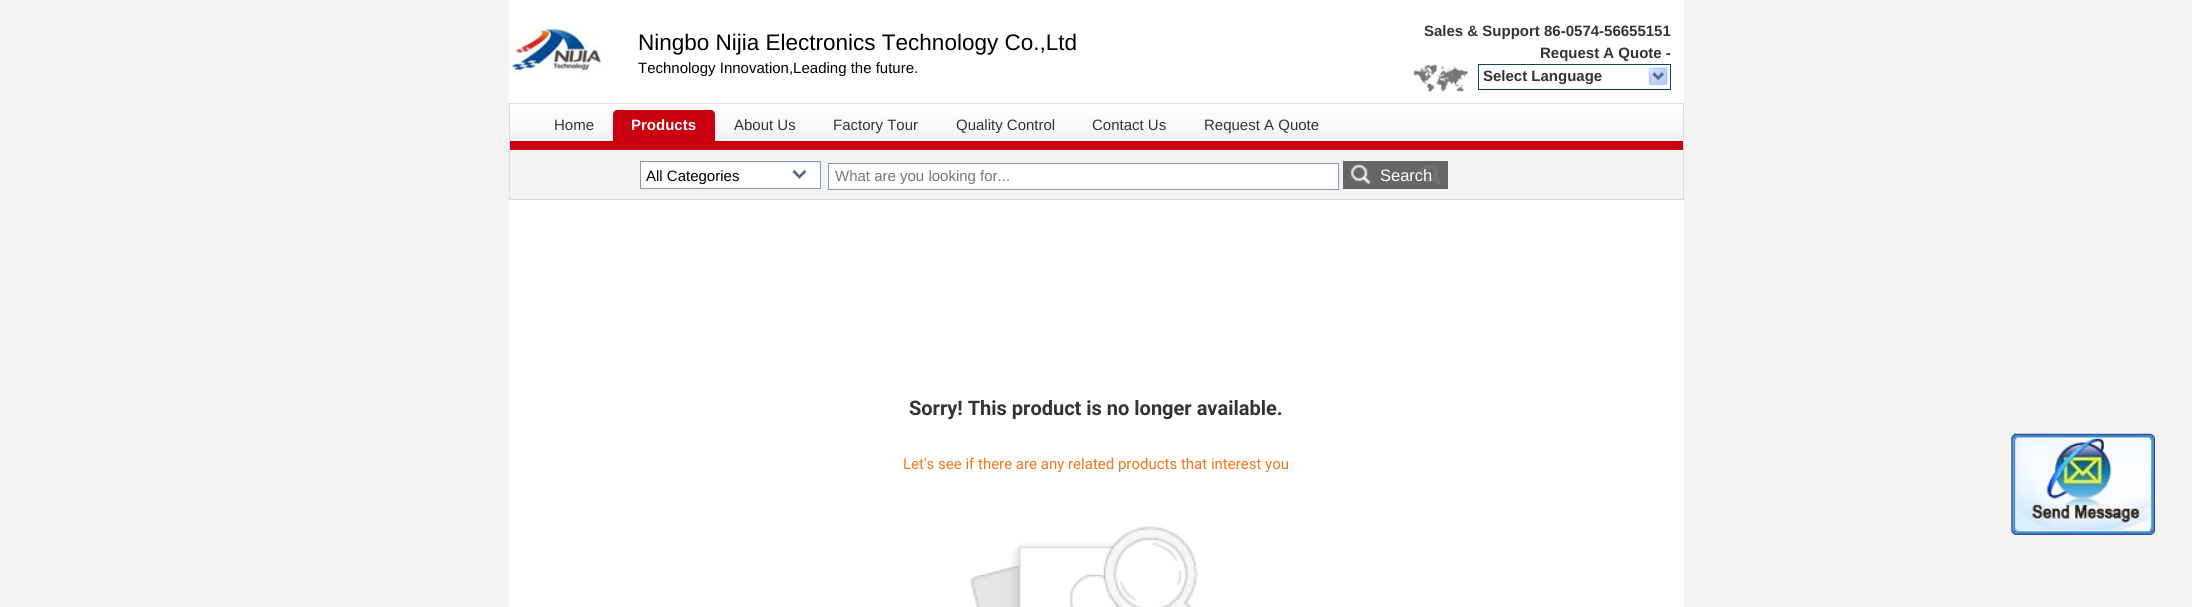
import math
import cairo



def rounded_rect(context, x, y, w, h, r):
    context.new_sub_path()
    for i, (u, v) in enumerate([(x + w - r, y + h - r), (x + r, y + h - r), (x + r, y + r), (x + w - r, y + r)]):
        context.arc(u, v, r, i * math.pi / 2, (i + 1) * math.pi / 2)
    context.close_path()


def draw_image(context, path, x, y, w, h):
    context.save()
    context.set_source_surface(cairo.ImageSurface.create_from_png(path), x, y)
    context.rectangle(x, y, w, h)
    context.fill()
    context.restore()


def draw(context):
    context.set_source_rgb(243 / 255, 243 / 255, 243 / 255)
    context.paint()
    context.set_source_rgb(1, 1, 1)
    context.rectangle(509, 0, 1175, 103)
    context.fill()
    draw_image(context, "images/1.png", 509, 28, 93, 49)
    draw_image(context, "images/2.png", 1413, 64, 55, 28)
    context.rectangle(1478.5, 64.5, 192, 25)
    context.set_source_rgb(14 / 255, 64 / 255, 116 / 255)
    context.set_line_width(1)
    context.stroke()
    draw_image(context, "images/3.png", 1648, 67, 20, 19)
    rounded_rect(context, 509.5, 103.5, 1174, 47, 0.5)
    context.set_source_rgb(221 / 255, 221 / 255, 220 / 255)
    context.stroke()
    gradient = cairo.LinearGradient(1096, 104, 1096, 141)
    gradient.add_color_stop_rgba(0, 1, 1, 1, 1)
    gradient.add_color_stop_rgba(1, 243 / 255, 242 / 255, 242 / 255, 1)
    context.set_source(gradient)
    context.rectangle(510, 104, 1173, 29)
    context.fill()
    context.set_source_rgb(203 / 255, 0, 15 / 255)
    context.rectangle(510, 141, 1173, 9)
    context.fill()
    context.new_path()
    context.move_to(617, 110)
    context.line_to(711, 110)
    context.curve_to(713, 110, 715, 112, 715, 114)
    context.line_to(715, 141)
    context.line_to(613, 141)
    context.line_to(613, 114)
    context.curve_to(613, 112, 615, 110, 617, 110)
    context.close_path()
    context.fill()
    context.rectangle(640.5, 161.5, 180, 27)
    context.set_source_rgb(127 / 255, 157 / 255, 185 / 255)
    context.stroke()
    context.set_source_rgb(1, 1, 1)
    context.rectangle(641, 163, 179, 25)
    context.fill()
    draw_image(context, "images/4.png", 792, 169, 15, 10)
    context.rectangle(509, 150, 1175, 1)
    context.fill()
    context.set_source_rgb(221 / 255, 221 / 255, 220 / 255)
    context.rectangle(1683, 150, 1, 50)
    context.fill()
    context.rectangle(509, 199, 1175, 1)
    context.fill()
    context.rectangle(509, 150, 1, 50)
    context.fill()
    context.set_source_rgb(1, 1, 1)
    context.rectangle(828.5, 163.5, 510, 26)
    context.fill_preserve()
    context.set_source_rgb(127 / 255, 157 / 255, 185 / 255)
    context.stroke()
    context.set_source_rgb(102 / 255, 102 / 255, 102 / 255)
    context.rectangle(1343, 161, 105, 28)
    context.fill()
    draw_image(context, "images/5.png", 1351, 164, 89, 20)
    context.set_source_rgb(1, 1, 1)
    context.rectangle(509, 200, 1175, 407)
    context.fill()
    draw_image(context, "images/6.png", 970, 526, 228, 81)
    draw_image(context, "images/7.png", 2011, 433, 144, 102)
    context.select_font_face("Liberation Sans")
    context.set_font_size(22.5)
    context.set_source_rgb(0, 0, 0)
    context.move_to(638, 50)
    context.show_text("Ningbo Nijia Electronics Technology Co.,Ltd")
    context.set_font_size(15)
    context.move_to(638, 73)
    context.show_text("Technology Innovation,Leading the future.")
    context.select_font_face("Liberation Sans", cairo.FontSlant.NORMAL, cairo.FontWeight.BOLD)
    context.set_source_rgb(51 / 255, 51 / 255, 51 / 255)
    context.move_to(1424, 36)
    context.show_text("Sales & Support 86-0574-56655151")
    context.move_to(1540, 58)
    context.show_text("Request A Quote -")
    context.move_to(1483, 81)
    context.show_text("Select Language")
    context.select_font_face("Liberation Sans")
    context.move_to(554, 130)
    context.show_text("Home")
    context.select_font_face("Liberation Sans", cairo.FontSlant.NORMAL, cairo.FontWeight.BOLD)
    context.set_source_rgb(1, 1, 1)
    context.move_to(631, 130)
    context.show_text("Products")
    context.select_font_face("Liberation Sans")
    context.set_source_rgb(51 / 255, 51 / 255, 51 / 255)
    context.move_to(734, 130)
    context.show_text("About Us")
    context.move_to(833, 130)
    context.show_text("Factory Tour")
    context.move_to(956, 130)
    context.show_text("Quality Control")
    context.move_to(1092, 130)
    context.show_text("Contact Us")
    context.move_to(1204, 130)
    context.show_text("Request A Quote")
    context.set_source_rgb(0, 0, 0)
    context.move_to(646, 181)
    context.show_text("All Categories")
    context.set_source_rgb(117 / 255, 117 / 255, 117 / 255)
    context.move_to(835, 181)
    context.show_text("What are you looking for...")
    context.set_font_size(16.5)
    context.set_source_rgb(1, 1, 1)
    context.move_to(1380, 181)
    context.show_text("Search")
    context.select_font_face("Roboto", cairo.FontSlant.NORMAL, cairo.FontWeight.BOLD)
    context.set_font_size(20)
    context.set_source_rgb(51 / 255, 51 / 255, 51 / 255)
    context.move_to(909, 415)
    context.show_text("Sorry! This product is no longer available.")
    context.select_font_face("Roboto")
    context.set_font_size(15)
    context.set_source_rgb(248 / 255, 116 / 255, 22 / 255)
    context.move_to(903, 469)
    context.show_text("Let's see if there are any related products that interest you")


surface = cairo.ImageSurface(cairo.Format.RGB24, 2192, 607)
context = cairo.Context(surface)
options = cairo.FontOptions()
options.set_hint_metrics(cairo.HintMetrics.OFF)
options.set_hint_style(cairo.HintStyle.NONE)
context.set_font_options(options)
context.set_miter_limit(4)
draw(context)
surface.write_to_png("out.png")
